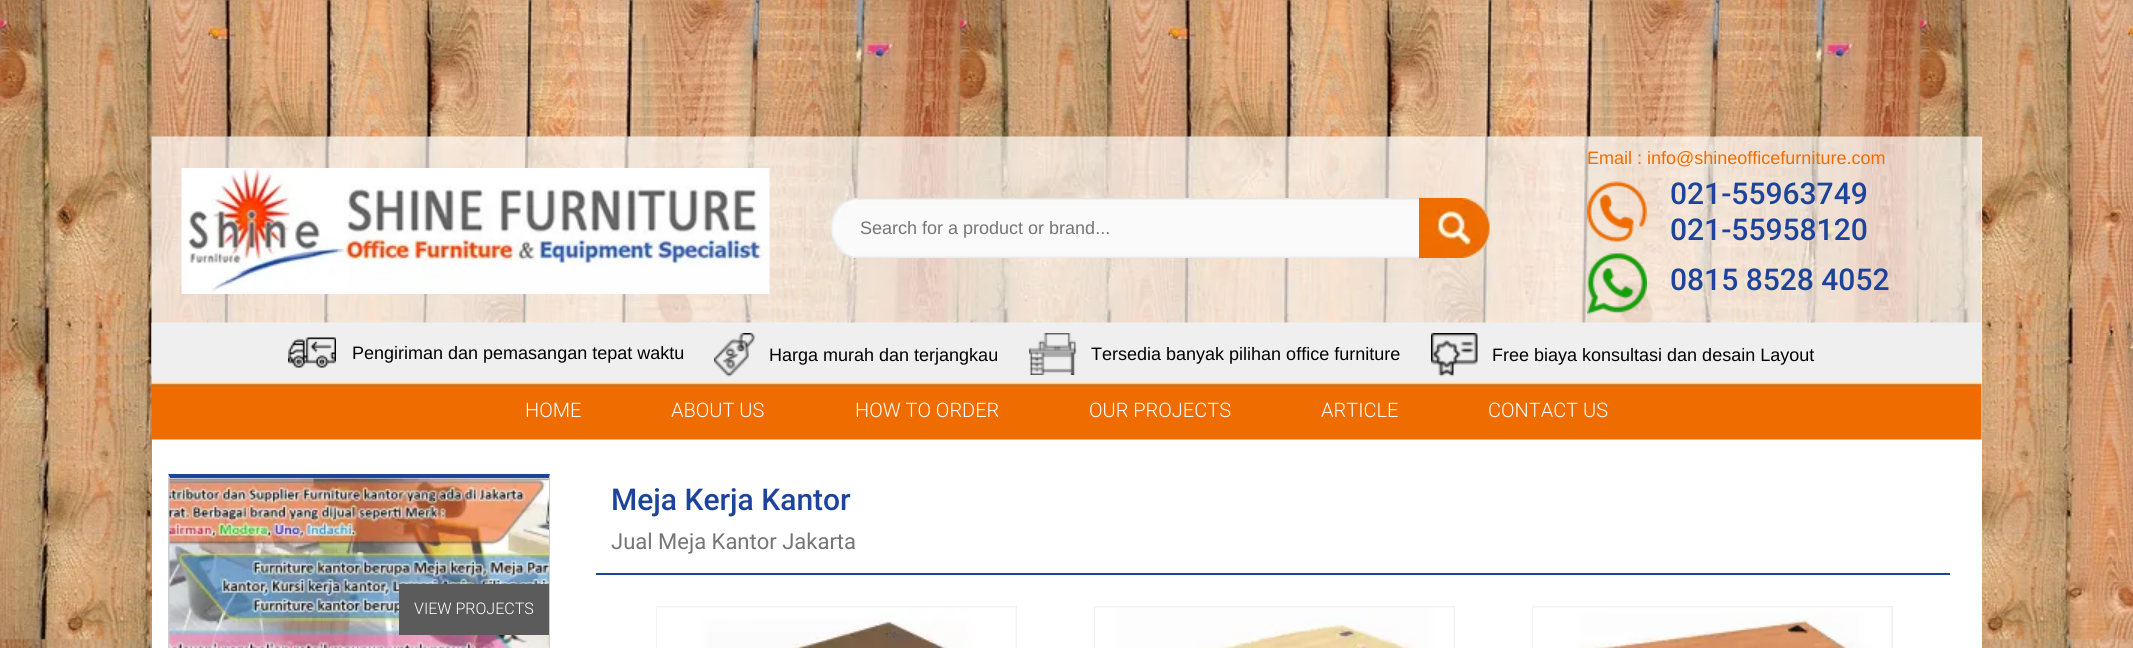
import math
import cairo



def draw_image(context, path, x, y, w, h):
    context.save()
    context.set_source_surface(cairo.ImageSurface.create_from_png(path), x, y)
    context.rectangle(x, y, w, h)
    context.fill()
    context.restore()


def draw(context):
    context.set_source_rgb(1, 1, 1)
    context.paint()
    draw_image(context, "images/1.png", 0, 0, 2133, 648)
    context.set_source_rgb(1, 1, 1)
    context.rectangle(152, 137, 1830, 511)
    context.fill()
    draw_image(context, "images/2.png", 151, 136, 1831, 304)
    draw_image(context, "images/3.png", 181, 168, 589, 126)
    draw_image(context, "images/4.png", 830, 198, 589, 60)
    draw_image(context, "images/5.png", 1419, 198, 71, 60)
    draw_image(context, "images/6.png", 1587, 181, 60, 61)
    draw_image(context, "images/7.png", 1587, 253, 60, 61)
    draw_image(context, "images/8.png", 288, 337, 48, 31)
    draw_image(context, "images/9.png", 714, 333, 41, 44)
    draw_image(context, "images/10.png", 1029, 333, 48, 42)
    draw_image(context, "images/11.png", 1431, 333, 47, 44)
    context.set_source_rgb(29 / 255, 68 / 255, 154 / 255)
    context.rectangle(596, 573, 1354, 2)
    context.fill()
    context.rectangle(657, 607, 359, 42)
    context.set_source_rgb(241 / 255, 241 / 255, 241 / 255)
    context.stroke()
    draw_image(context, "images/12.png", 657, 607, 359, 41)
    context.rectangle(1095, 607, 359, 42)
    context.stroke()
    draw_image(context, "images/13.png", 1095, 607, 359, 41)
    context.rectangle(1533, 607, 359, 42)
    context.stroke()
    draw_image(context, "images/14.png", 1533, 607, 359, 41)
    context.set_source_rgb(29 / 255, 68 / 255, 154 / 255)
    context.new_path()
    context.move_to(168, 474)
    context.line_to(550, 474)
    context.line_to(549, 478)
    context.line_to(170, 478)
    context.close_path()
    context.fill()
    context.set_source_rgb(205 / 255, 205 / 255, 205 / 255)
    context.new_path()
    context.move_to(550, 474)
    context.line_to(550, 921)
    context.line_to(549, 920)
    context.line_to(549, 478)
    context.close_path()
    context.fill()
    context.new_path()
    context.move_to(168, 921)
    context.line_to(168, 474)
    context.line_to(170, 478)
    context.line_to(170, 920)
    context.close_path()
    context.fill()
    draw_image(context, "images/15.png", 169, 478, 380, 170)
    context.set_source_rgb(91 / 255, 91 / 255, 91 / 255)
    context.rectangle(399, 584, 150, 51)
    context.fill()
    context.select_font_face("Liberation Sans")
    context.set_font_size(18)
    context.set_source_rgb(117 / 255, 117 / 255, 117 / 255)
    context.move_to(860, 234)
    context.show_text("Search for a product or brand...")
    context.set_source_rgb(239 / 255, 108 / 255, 0)
    context.move_to(1587, 164)
    context.show_text("Email : info@shineofficefurniture.com")
    context.select_font_face("Roboto Medium")
    context.set_font_size(30)
    context.set_source_rgb(29 / 255, 68 / 255, 154 / 255)
    context.move_to(1670, 204)
    context.show_text("021-55963749")
    context.move_to(1670, 240)
    context.show_text("021-55958120")
    context.move_to(1670, 290)
    context.show_text("0815 8528 4052")
    context.select_font_face("Liberation Sans")
    context.set_font_size(18)
    context.set_source_rgb(0, 0, 0)
    context.move_to(352, 359)
    context.show_text("Pengiriman dan pemasangan tepat waktu")
    context.move_to(769, 361)
    context.show_text("Harga murah dan terjangkau")
    context.move_to(1091, 360)
    context.show_text("Tersedia banyak pilihan office furniture")
    context.move_to(1492, 361)
    context.show_text("Free biaya konsultasi dan desain Layout")
    context.select_font_face("Roboto Light")
    context.set_font_size(20)
    context.set_source_rgb(1, 1, 1)
    context.move_to(525, 417)
    context.show_text("HOME")
    context.move_to(671, 417)
    context.show_text("ABOUT US")
    context.move_to(855, 417)
    context.show_text("HOW TO ORDER")
    context.move_to(1089, 417)
    context.show_text("OUR PROJECTS")
    context.move_to(1321, 417)
    context.show_text("ARTICLE")
    context.move_to(1488, 417)
    context.show_text("CONTACT US")
    context.select_font_face("Roboto Medium")
    context.set_font_size(30)
    context.set_source_rgb(29 / 255, 68 / 255, 154 / 255)
    context.move_to(611, 510)
    context.show_text("Meja Kerja Kantor")
    context.select_font_face("Roboto")
    context.set_font_size(22)
    context.set_source_rgb(117 / 255, 117 / 255, 117 / 255)
    context.move_to(611, 549)
    context.show_text("Jual Meja Kantor Jakarta")
    context.select_font_face("Roboto Light")
    context.set_font_size(16)
    context.set_source_rgb(1, 1, 1)
    context.move_to(414, 614)
    context.show_text("VIEW PROJECTS")


surface = cairo.ImageSurface(cairo.Format.RGB24, 2133, 648)
context = cairo.Context(surface)
options = cairo.FontOptions()
options.set_hint_metrics(cairo.HintMetrics.OFF)
options.set_hint_style(cairo.HintStyle.NONE)
context.set_font_options(options)
context.set_miter_limit(4)
draw(context)
surface.write_to_png("out.png")
